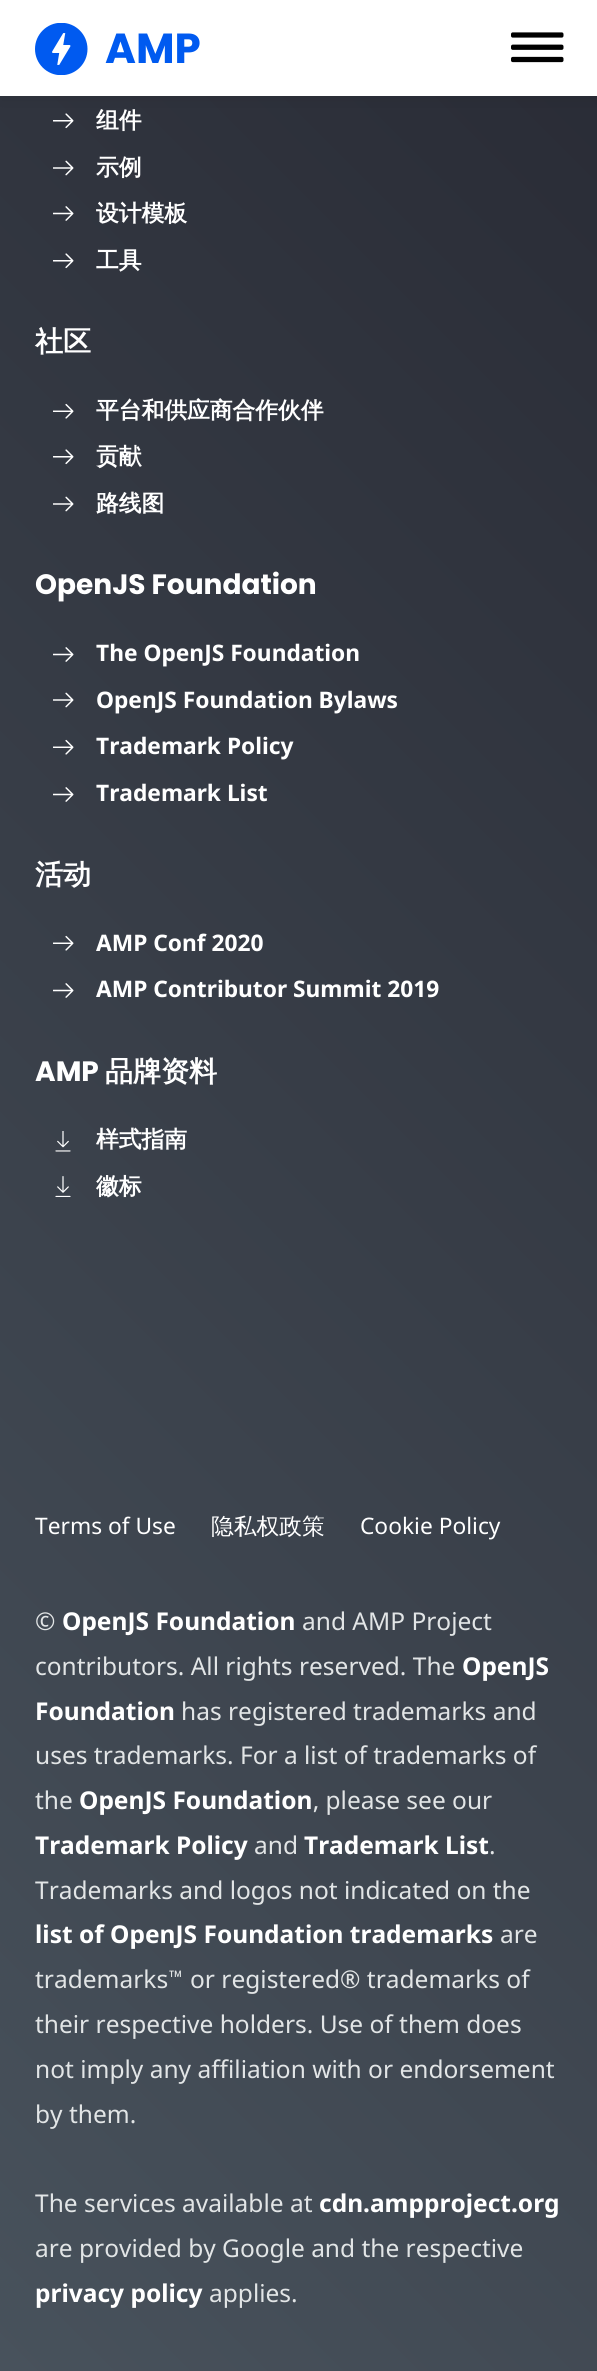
import math
import cairo



def rounded_rect(context, x, y, w, h, r):
    context.new_sub_path()
    for i, (u, v) in enumerate([(x + w - r, y + h - r), (x + r, y + h - r), (x + r, y + r), (x + w - r, y + r)]):
        context.arc(u, v, r, i * math.pi / 2, (i + 1) * math.pi / 2)
    context.close_path()


def draw_shadow(context, x, y, w, h, r, blur, alpha):
    context.push_group_with_content(cairo.Content.ALPHA)
    context.set_operator(cairo.Operator.SOURCE)
    for i in range(15, -16, -2):
        e = blur * i / 6
        if min(w, h) + 2 * e > 0:
            context.set_source_rgba(0, 0, 0, alpha * math.erfc((i - 1) / 8.5) / 2)
            rounded_rect(context, x - e, y - e, w + 2 * e, h + 2 * e, max(0, min(r + e + blur * .6, min(w, h) / 2 + e)))
            context.fill()
    context.mask(context.pop_group())


def draw_image(context, path, x, y, w, h):
    context.save()
    context.set_source_surface(cairo.ImageSurface.create_from_png(path), x, y)
    context.rectangle(x, y, w, h)
    context.fill()
    context.restore()


def draw(context):
    context.set_source_rgb(1, 1, 1)
    context.paint()
    gradient = cairo.LinearGradient(-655, 1716, 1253, -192)
    gradient.add_color_stop_rgba(0, 72 / 255, 82 / 255, 92 / 255, 1)
    gradient.add_color_stop_rgba(1, 32 / 255, 32 / 255, 42 / 255, 1)
    context.set_source(gradient)
    context.rectangle(0, 96, 597, 2275)
    context.fill()
    draw_image(context, "images/3.png", 53, 113, 21, 16)
    context.set_source_rgb(0, 0, 0)
    draw_shadow(context, 0, 4, 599, 96, 0, 9, 0.07)
    context.set_source_rgb(1, 1, 1)
    context.rectangle(0, 0, 597, 96)
    context.fill()
    draw_image(context, "images/1.png", 35, 23, 53, 52)
    draw_image(context, "images/2.png", 511, 32, 53, 31)
    draw_image(context, "images/4.png", 53, 160, 21, 16)
    draw_image(context, "images/5.png", 53, 206, 21, 15)
    draw_image(context, "images/6.png", 53, 253, 21, 16)
    draw_image(context, "images/7.png", 53, 403, 21, 16)
    draw_image(context, "images/8.png", 53, 449, 21, 16)
    draw_image(context, "images/9.png", 53, 496, 21, 16)
    draw_image(context, "images/10.png", 53, 647, 21, 15)
    draw_image(context, "images/11.png", 53, 692, 21, 16)
    draw_image(context, "images/12.png", 53, 739, 21, 16)
    draw_image(context, "images/13.png", 53, 787, 21, 15)
    draw_image(context, "images/14.png", 53, 935, 21, 16)
    draw_image(context, "images/15.png", 53, 983, 21, 15)
    draw_image(context, "images/16.png", 55, 1131, 16, 21)
    draw_image(context, "images/17.png", 55, 1176, 16, 21)
    context.select_font_face("Poppins", cairo.FontSlant.NORMAL, cairo.FontWeight.BOLD)
    context.set_font_size(42)
    context.set_source_rgb(0, 90 / 255, 240 / 255)
    context.move_to(105, 63)
    context.show_text("AMP")
    context.select_font_face("WenQuanYi Zen Hei", cairo.FontSlant.NORMAL, cairo.FontWeight.BOLD)
    context.set_font_size(22.75)
    context.set_source_rgb(1, 1, 1)
    context.move_to(96, 128)
    context.show_text("组件")
    context.move_to(96, 175)
    context.show_text("示例")
    context.move_to(96, 221)
    context.show_text("设计模板")
    context.move_to(96, 268)
    context.show_text("工具")
    context.set_font_size(28)
    context.move_to(35, 351)
    context.show_text("社区")
    context.set_font_size(22.75)
    context.move_to(96, 418)
    context.show_text("平台和供应商合作伙伴")
    context.move_to(96, 464)
    context.show_text("贡献")
    context.move_to(96, 511)
    context.show_text("路线图")
    context.select_font_face("Poppins", cairo.FontSlant.NORMAL, cairo.FontWeight.BOLD)
    context.set_font_size(28)
    context.move_to(35, 594)
    context.show_text("OpenJS Foundation")
    context.select_font_face("Noto Sans", cairo.FontSlant.NORMAL, cairo.FontWeight.BOLD)
    context.set_font_size(22.75)
    context.move_to(96, 661)
    context.show_text("The OpenJS Foundation")
    context.move_to(96, 708)
    context.show_text("OpenJS Foundation Bylaws")
    context.move_to(96, 754)
    context.show_text("Trademark Policy")
    context.move_to(96, 801)
    context.show_text("Trademark List")
    context.select_font_face("WenQuanYi Zen Hei", cairo.FontSlant.NORMAL, cairo.FontWeight.BOLD)
    context.set_font_size(28)
    context.move_to(35, 884)
    context.show_text("活动")
    context.select_font_face("Noto Sans", cairo.FontSlant.NORMAL, cairo.FontWeight.BOLD)
    context.set_font_size(22.75)
    context.move_to(96, 951)
    context.show_text("AMP Conf 2020")
    context.move_to(96, 997)
    context.show_text("AMP Contributor Summit 2019")
    context.select_font_face("Poppins", cairo.FontSlant.NORMAL, cairo.FontWeight.BOLD)
    context.set_font_size(28)
    context.move_to(35, 1081)
    context.show_text("AMP")
    context.select_font_face("WenQuanYi Zen Hei", cairo.FontSlant.NORMAL, cairo.FontWeight.BOLD)
    context.move_to(105, 1081)
    context.show_text("品牌资料")
    context.set_font_size(22.75)
    context.move_to(96, 1147)
    context.show_text("样式指南")
    context.move_to(96, 1194)
    context.show_text("徽标")
    context.select_font_face("Noto Sans")
    context.move_to(35, 1534)
    context.show_text("Terms of Use")
    context.select_font_face("WenQuanYi Zen Hei Medium")
    context.move_to(211, 1534)
    context.show_text("隐私权政策")
    context.select_font_face("Noto Sans")
    context.move_to(360, 1534)
    context.show_text("Cookie Policy")
    context.set_font_size(24.5)
    context.set_source_rgb(226 / 255, 229 / 255, 230 / 255)
    context.move_to(35, 1630)
    context.show_text("©")
    context.select_font_face("Noto Sans", cairo.FontSlant.NORMAL, cairo.FontWeight.BOLD)
    context.set_source_rgb(1, 1, 1)
    context.move_to(62, 1630)
    context.show_text("OpenJS Foundation")
    context.select_font_face("Noto Sans")
    context.set_source_rgb(226 / 255, 229 / 255, 230 / 255)
    context.move_to(302, 1630)
    context.show_text("and AMP Project")
    context.move_to(35, 1675)
    context.show_text("contributors. All rights reserved. The")
    context.select_font_face("Noto Sans", cairo.FontSlant.NORMAL, cairo.FontWeight.BOLD)
    context.set_source_rgb(1, 1, 1)
    context.move_to(462, 1675)
    context.show_text("OpenJS")
    context.move_to(35, 1720)
    context.show_text("Foundation")
    context.select_font_face("Noto Sans")
    context.set_source_rgb(226 / 255, 229 / 255, 230 / 255)
    context.move_to(181, 1720)
    context.show_text("has registered trademarks and")
    context.move_to(35, 1764)
    context.show_text("uses trademarks. For a list of trademarks of")
    context.move_to(35, 1809)
    context.show_text("the")
    context.select_font_face("Noto Sans", cairo.FontSlant.NORMAL, cairo.FontWeight.BOLD)
    context.set_source_rgb(1, 1, 1)
    context.move_to(79, 1809)
    context.show_text("OpenJS Foundation")
    context.select_font_face("Noto Sans")
    context.set_source_rgb(226 / 255, 229 / 255, 230 / 255)
    context.move_to(313, 1809)
    context.show_text(", please see our")
    context.select_font_face("Noto Sans", cairo.FontSlant.NORMAL, cairo.FontWeight.BOLD)
    context.set_source_rgb(1, 1, 1)
    context.move_to(35, 1854)
    context.show_text("Trademark Policy")
    context.select_font_face("Noto Sans")
    context.set_source_rgb(226 / 255, 229 / 255, 230 / 255)
    context.move_to(254, 1854)
    context.show_text("and")
    context.select_font_face("Noto Sans", cairo.FontSlant.NORMAL, cairo.FontWeight.BOLD)
    context.set_source_rgb(1, 1, 1)
    context.move_to(304, 1854)
    context.show_text("Trademark List")
    context.select_font_face("Noto Sans")
    context.set_source_rgb(226 / 255, 229 / 255, 230 / 255)
    context.move_to(489, 1854)
    context.show_text(".")
    context.move_to(35, 1899)
    context.show_text("Trademarks and logos not indicated on the")
    context.select_font_face("Noto Sans", cairo.FontSlant.NORMAL, cairo.FontWeight.BOLD)
    context.set_source_rgb(1, 1, 1)
    context.move_to(35, 1943)
    context.show_text("list of OpenJS Foundation trademarks")
    context.select_font_face("Noto Sans")
    context.set_source_rgb(226 / 255, 229 / 255, 230 / 255)
    context.move_to(500, 1943)
    context.show_text("are")
    context.move_to(35, 1988)
    context.show_text("trademarks")
    context.select_font_face("Roboto")
    context.move_to(168, 1988)
    context.show_text("™")
    context.select_font_face("Noto Sans")
    context.move_to(190, 1988)
    context.show_text("or registered® trademarks of")
    context.move_to(35, 2033)
    context.show_text("their respective holders. Use of them does")
    context.move_to(35, 2078)
    context.show_text("not imply any affiliation with or endorsement")
    context.move_to(35, 2123)
    context.show_text("by them.")
    context.move_to(35, 2212)
    context.show_text("The services available at")
    context.select_font_face("Noto Sans", cairo.FontSlant.NORMAL, cairo.FontWeight.BOLD)
    context.set_source_rgb(1, 1, 1)
    context.move_to(319, 2212)
    context.show_text("cdn.ampproject.org")
    context.select_font_face("Noto Sans")
    context.set_source_rgb(226 / 255, 229 / 255, 230 / 255)
    context.move_to(35, 2257)
    context.show_text("are provided by Google and the respective")
    context.select_font_face("Noto Sans", cairo.FontSlant.NORMAL, cairo.FontWeight.BOLD)
    context.set_source_rgb(1, 1, 1)
    context.move_to(35, 2302)
    context.show_text("privacy policy")
    context.select_font_face("Noto Sans")
    context.set_source_rgb(226 / 255, 229 / 255, 230 / 255)
    context.move_to(209, 2302)
    context.show_text("applies.")


surface = cairo.ImageSurface(cairo.Format.RGB24, 597, 2371)
context = cairo.Context(surface)
options = cairo.FontOptions()
options.set_hint_metrics(cairo.HintMetrics.OFF)
options.set_hint_style(cairo.HintStyle.NONE)
context.set_font_options(options)
context.set_miter_limit(4)
draw(context)
surface.write_to_png("out.png")
